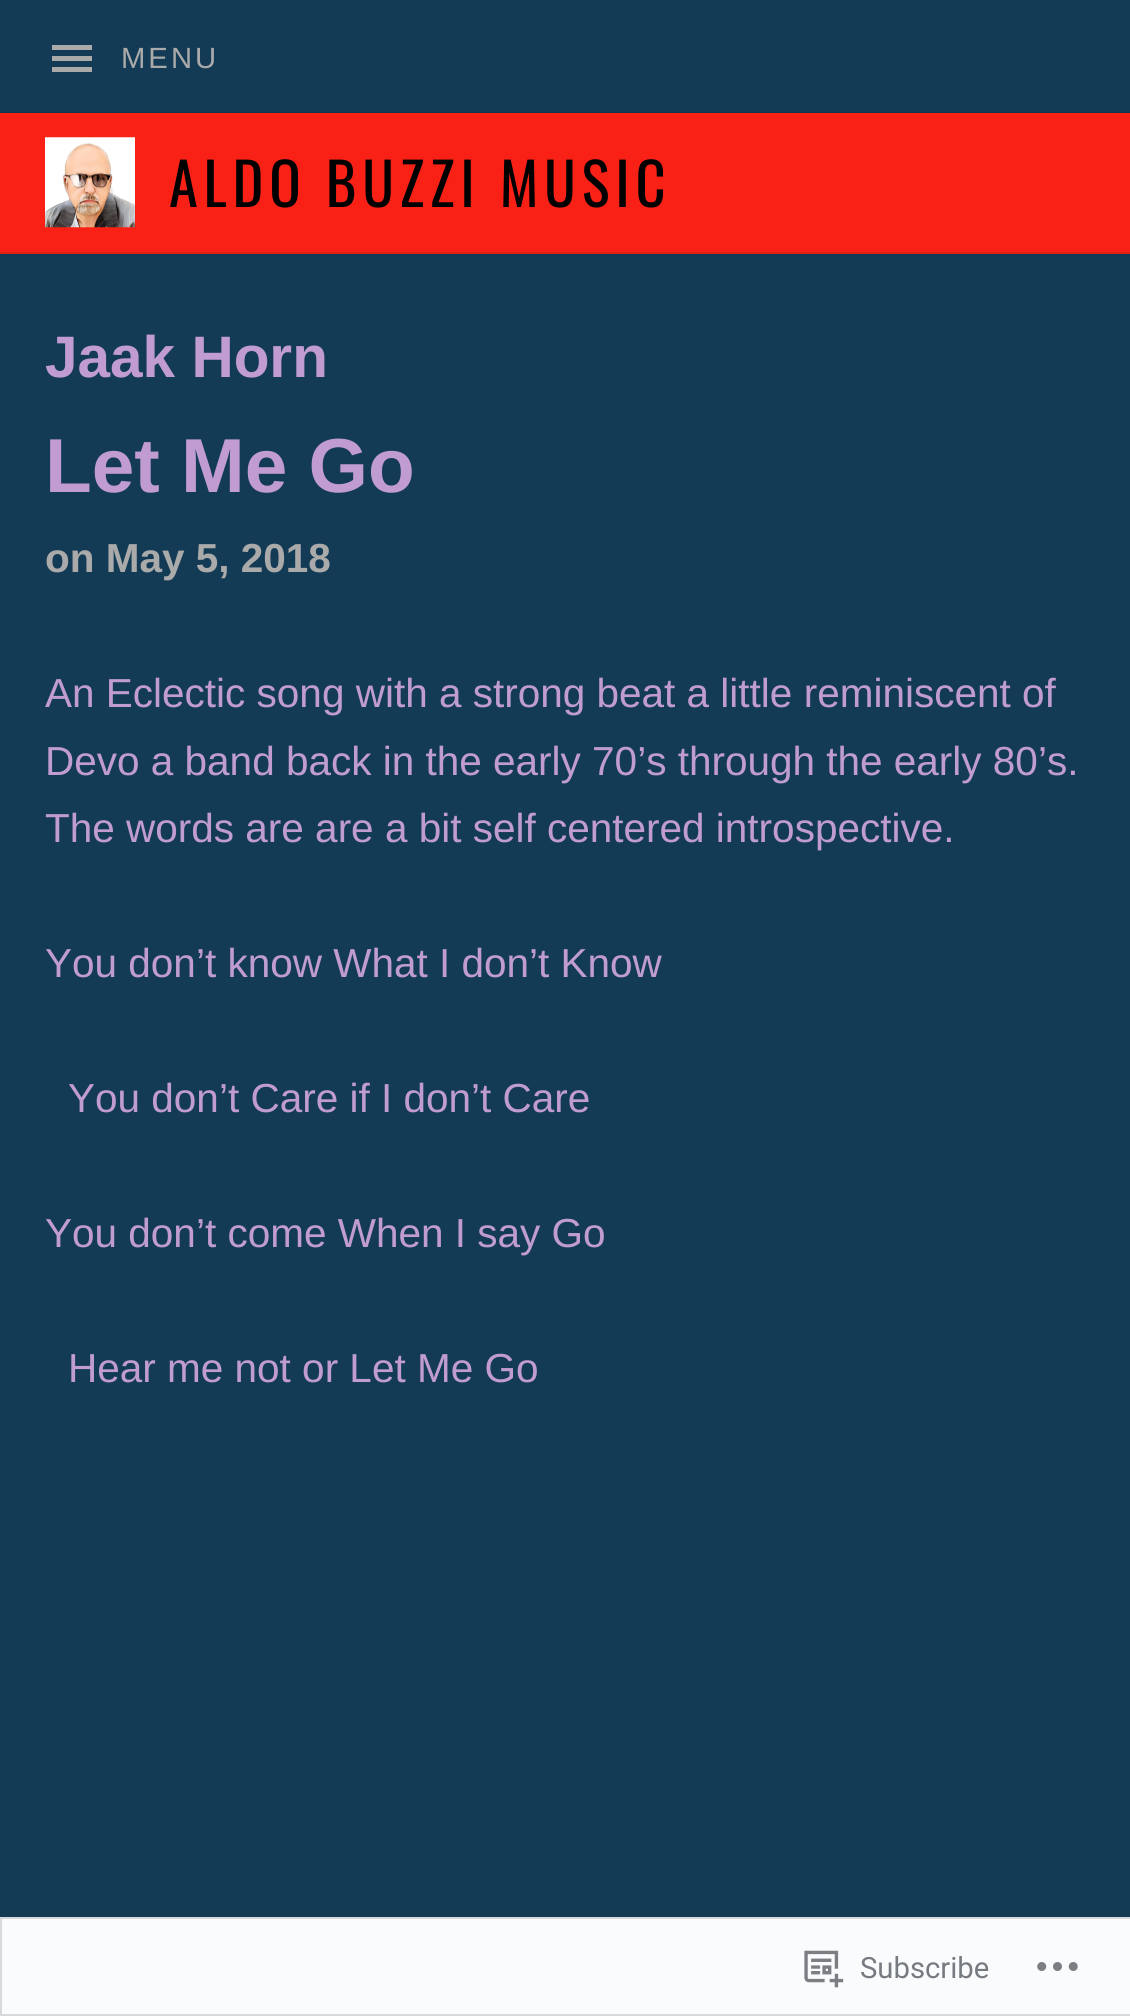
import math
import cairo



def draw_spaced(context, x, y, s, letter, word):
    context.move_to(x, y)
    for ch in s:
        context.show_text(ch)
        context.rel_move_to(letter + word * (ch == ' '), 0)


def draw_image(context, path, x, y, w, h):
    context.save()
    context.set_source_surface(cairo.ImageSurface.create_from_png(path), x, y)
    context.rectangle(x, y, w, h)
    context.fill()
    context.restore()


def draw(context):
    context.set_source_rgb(20 / 255, 59 / 255, 85 / 255)
    context.paint()
    context.set_source_rgb(18 / 255, 53 / 255, 77 / 255)
    context.new_path()
    context.move_to(0, 112)
    context.line_to(0, 115)
    context.line_to(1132, 115)
    context.line_to(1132, 2)
    context.line_to(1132, 112)
    context.close_path()
    context.fill()
    context.set_source_rgb(170 / 255, 170 / 255, 170 / 255)
    context.new_path()
    context.move_to(52, 72)
    context.line_to(92, 72)
    context.line_to(92, 67)
    context.line_to(52, 67)
    context.close_path()
    context.move_to(52, 61)
    context.line_to(92, 61)
    context.line_to(92, 56)
    context.line_to(52, 56)
    context.close_path()
    context.move_to(52, 45)
    context.line_to(52, 50)
    context.line_to(92, 50)
    context.line_to(92, 45)
    context.close_path()
    context.fill()
    context.set_source_rgb(249 / 255, 33 / 255, 22 / 255)
    context.rectangle(0, 113, 1130, 139)
    context.fill()
    context.set_source_rgb(224 / 255, 30 / 255, 20 / 255)
    context.rectangle(0, 252, 1130, 2)
    context.fill()
    draw_image(context, "images/1.png", 45, 137, 90, 91)
    context.set_source_rgb(250 / 255, 251 / 255, 252 / 255)
    context.rectangle(1, 1918, 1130, 97)
    context.fill_preserve()
    context.set_source_rgb(216 / 255, 217 / 255, 219 / 255)
    context.stroke()
    draw_image(context, "images/2.png", 804, 1950, 40, 38)
    draw_image(context, "images/3.png", 1037, 1962, 41, 9)
    context.select_font_face("Arimo")
    context.set_font_size(29.25)
    context.set_source_rgb(170 / 255, 170 / 255, 170 / 255)
    draw_spaced(context, 121, 68, "MENU", 3, 0)
    context.select_font_face("Oswald")
    context.set_font_size(58.5)
    context.set_source_rgb(0, 0, 0)
    draw_spaced(context, 169, 207, "ALDO BUZZI MUSIC", 5.8, 0)
    context.select_font_face("Arimo", cairo.FontSlant.NORMAL, cairo.FontWeight.BOLD)
    context.set_source_rgb(193 / 255, 156 / 255, 210 / 255)
    context.move_to(45, 377)
    context.show_text("Jaak Horn")
    context.set_font_size(76.5)
    context.move_to(45, 492)
    context.show_text("Let Me Go")
    context.set_font_size(40.5)
    context.set_source_rgb(170 / 255, 170 / 255, 170 / 255)
    context.move_to(45, 572)
    context.show_text("on May 5, 2018")
    context.select_font_face("Arimo")
    context.set_source_rgb(193 / 255, 156 / 255, 210 / 255)
    context.move_to(45, 707)
    context.show_text("An Eclectic song with a strong beat a little reminiscent of")
    context.move_to(45, 775)
    context.show_text("Devo a band back in the early 70’s through the early 80’s.")
    context.move_to(45, 842)
    context.show_text("The words are are a bit self centered introspective.")
    context.move_to(45, 977)
    context.show_text("You don’t know What I don’t Know")
    context.move_to(68, 1112)
    context.show_text("You don’t Care if I don’t Care")
    context.move_to(45, 1247)
    context.show_text("You don’t come When I say Go")
    context.move_to(68, 1382)
    context.show_text("Hear me not or Let Me Go")
    context.select_font_face("Roboto")
    context.set_font_size(29.25)
    context.set_source_rgb(118 / 255, 123 / 255, 129 / 255)
    context.move_to(860, 1978)
    context.show_text("Subscribe")


surface = cairo.ImageSurface(cairo.Format.RGB24, 1130, 2016)
context = cairo.Context(surface)
options = cairo.FontOptions()
options.set_hint_metrics(cairo.HintMetrics.OFF)
options.set_hint_style(cairo.HintStyle.NONE)
context.set_font_options(options)
context.set_miter_limit(4)
draw(context)
surface.write_to_png("out.png")
